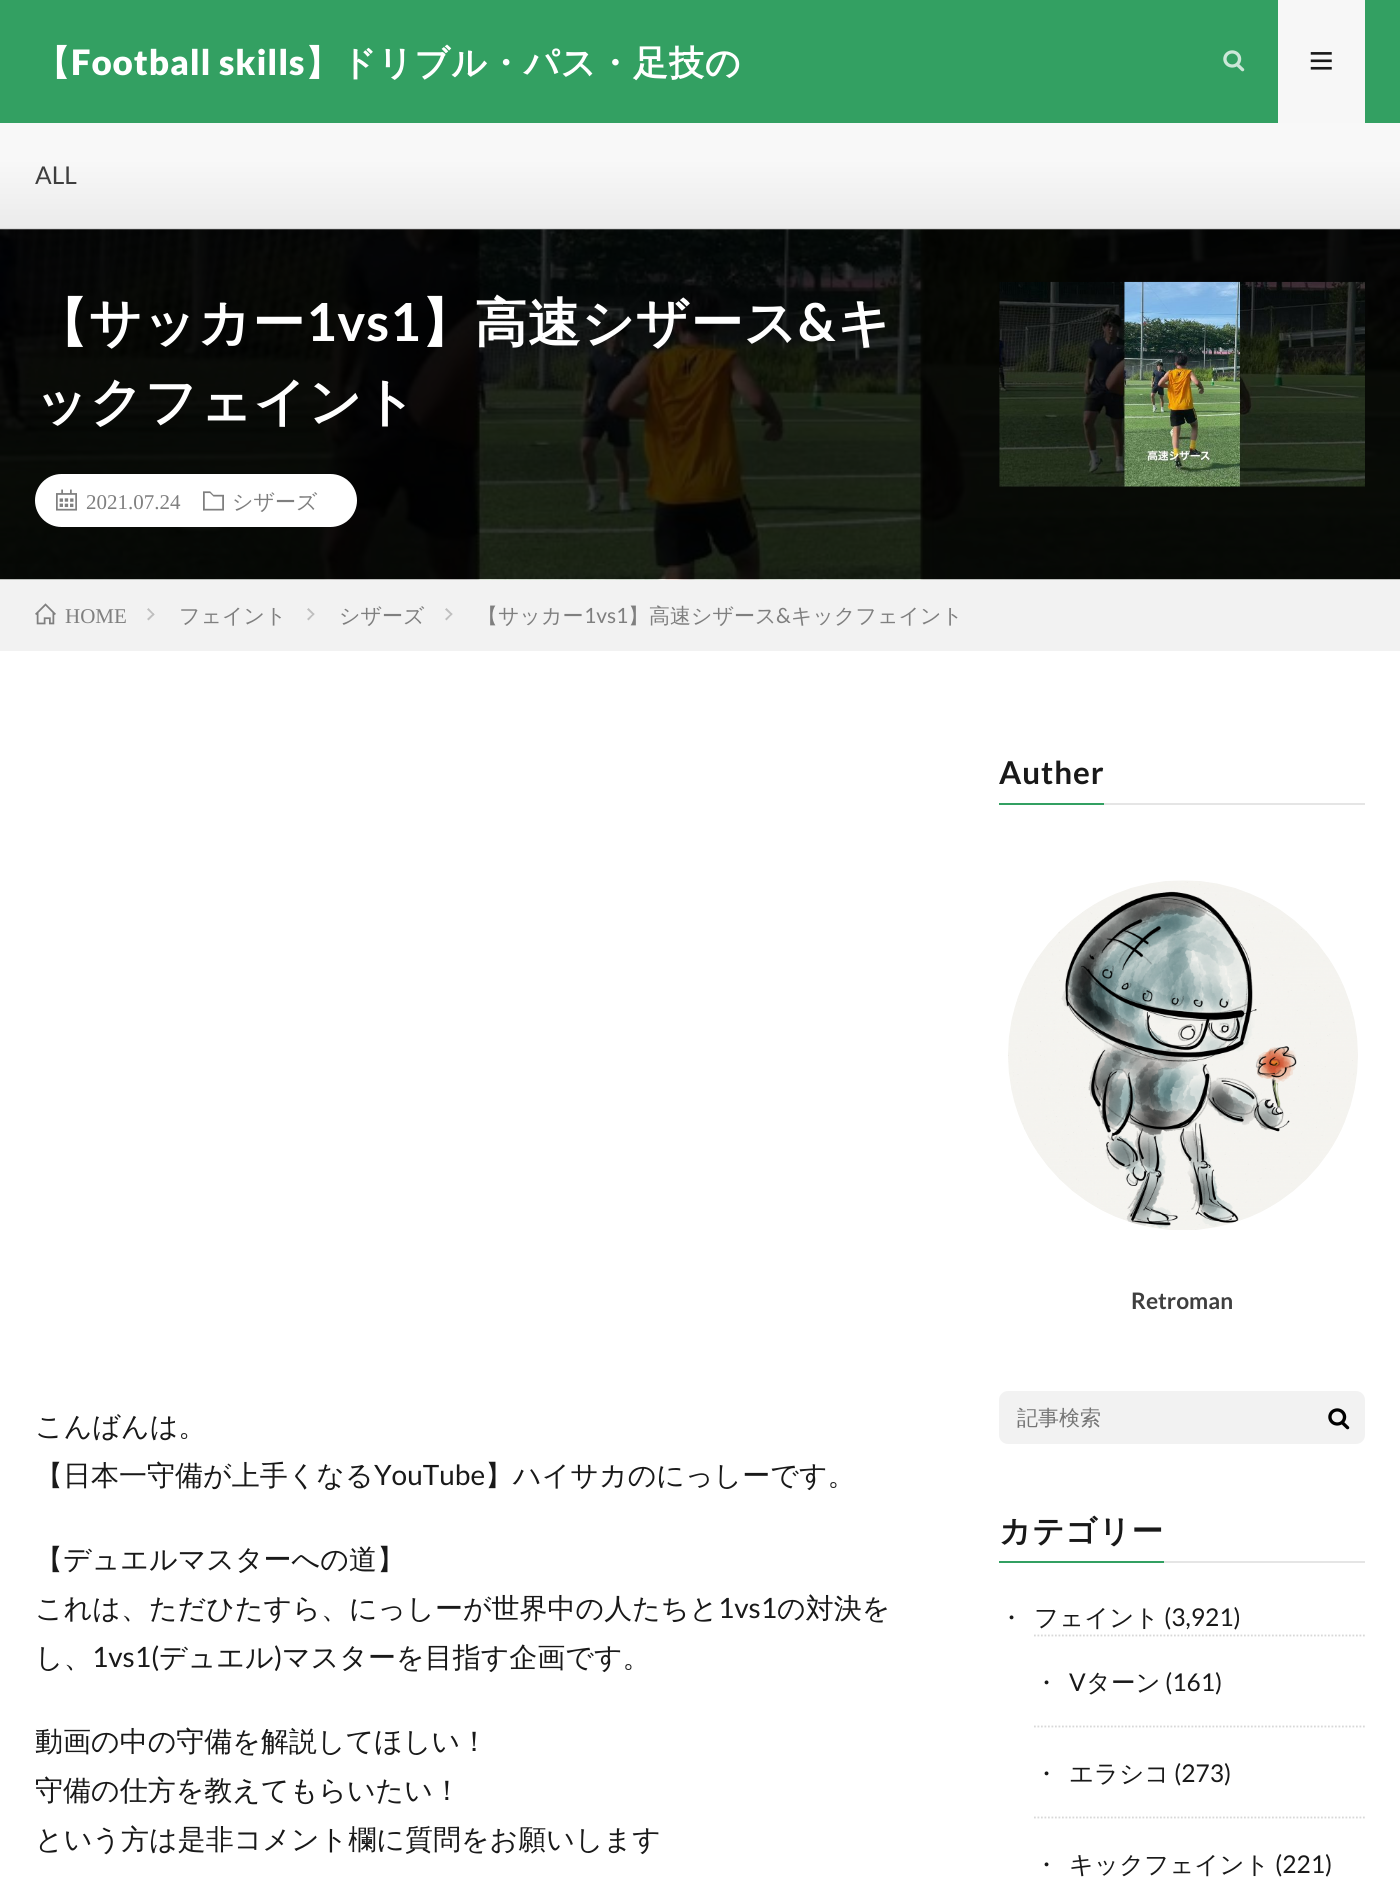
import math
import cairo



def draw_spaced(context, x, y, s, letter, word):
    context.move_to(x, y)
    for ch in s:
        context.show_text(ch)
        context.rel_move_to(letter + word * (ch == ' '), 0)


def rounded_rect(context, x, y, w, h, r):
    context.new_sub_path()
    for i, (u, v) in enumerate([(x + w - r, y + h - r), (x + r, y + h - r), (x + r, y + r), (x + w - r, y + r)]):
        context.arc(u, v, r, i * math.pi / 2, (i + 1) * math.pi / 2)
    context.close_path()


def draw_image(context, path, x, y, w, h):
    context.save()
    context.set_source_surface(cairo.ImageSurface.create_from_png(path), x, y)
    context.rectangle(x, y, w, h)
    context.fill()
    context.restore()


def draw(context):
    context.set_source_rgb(1, 1, 1)
    context.paint()
    context.set_source_rgb(51 / 255, 160 / 255, 98 / 255)
    context.rectangle(0, 0, 1400, 123)
    context.fill()
    draw_image(context, "images/1.png", 1223, 50, 22, 22)
    context.set_source_rgb(247 / 255, 247 / 255, 247 / 255)
    context.rectangle(1278, 0, 87, 123)
    context.fill()
    draw_image(context, "images/2.png", 1310, 52, 22, 18)
    context.set_source_rgb(216 / 255, 216 / 255, 216 / 255)
    context.rectangle(0, 228, 1400, 2)
    context.fill()
    gradient = cairo.LinearGradient(700, 122, 700, 228)
    gradient.add_color_stop_rgba(0, 248 / 255, 248 / 255, 248 / 255, 1)
    gradient.add_color_stop_rgba(0.35, 248 / 255, 248 / 255, 248 / 255, 1)
    gradient.add_color_stop_rgba(1, 235 / 255, 235 / 255, 235 / 255, 1)
    context.set_source(gradient)
    context.rectangle(0, 123, 1400, 105)
    context.fill()
    context.set_source_rgb(242 / 255, 242 / 255, 242 / 255)
    context.rectangle(0, 579, 1400, 72)
    context.fill()
    draw_image(context, "images/3.png", 0, 229, 1400, 351)
    context.set_source_rgb(1, 1, 1)
    rounded_rect(context, 35, 474, 322, 53, 26.5)
    context.fill()
    draw_image(context, "images/4.png", 56, 489, 21, 22)
    draw_image(context, "images/5.png", 203, 491, 21, 20)
    draw_image(context, "images/6.png", 999, 281, 366, 206)
    draw_image(context, "images/7.png", 35, 603, 21, 22)
    context.set_source_rgb(191 / 255, 191 / 255, 191 / 255)
    context.new_path()
    context.move_to(148.5, 608)
    context.line_to(154.5, 614.5)
    context.line_to(153.5, 615.5)
    context.line_to(147, 609.5)
    context.close_path()
    context.fill()
    context.new_path()
    context.move_to(153.5, 613)
    context.line_to(154.5, 614.5)
    context.line_to(148.5, 620.5)
    context.line_to(147, 619)
    context.close_path()
    context.fill()
    context.new_path()
    context.move_to(308.5, 608)
    context.line_to(314.5, 614)
    context.line_to(313.5, 615.5)
    context.line_to(307, 609.5)
    context.close_path()
    context.fill()
    context.new_path()
    context.move_to(313.5, 613)
    context.line_to(314.5, 614)
    context.line_to(308.5, 620.5)
    context.line_to(307, 619)
    context.close_path()
    context.fill()
    context.new_path()
    context.move_to(446.5, 608)
    context.line_to(452.5, 614)
    context.line_to(451.5, 615.5)
    context.line_to(445, 609.5)
    context.close_path()
    context.fill()
    context.new_path()
    context.move_to(451.5, 613)
    context.line_to(452.5, 614)
    context.line_to(446.5, 620.5)
    context.line_to(445, 619)
    context.close_path()
    context.fill()
    context.set_source_rgb(51 / 255, 160 / 255, 98 / 255)
    context.rectangle(999, 803, 105, 2)
    context.fill()
    context.set_source_rgb(229 / 255, 229 / 255, 229 / 255)
    context.rectangle(1104, 803, 261, 2)
    context.fill()
    draw_image(context, "images/8.png", 1008, 880, 350, 350)
    context.set_source_rgb(242 / 255, 242 / 255, 242 / 255)
    rounded_rect(context, 999, 1391, 366, 53, 9)
    context.fill()
    draw_image(context, "images/9.png", 1328, 1408, 22, 22)
    context.set_source_rgb(51 / 255, 160 / 255, 98 / 255)
    context.rectangle(999, 1561, 165, 2)
    context.fill()
    context.set_source_rgb(229 / 255, 229 / 255, 229 / 255)
    context.rectangle(1164, 1561, 201, 2)
    context.fill()
    context.new_path()
    context.move_to(1034, 1635.5)
    context.line_to(1365, 1635.5)
    context.set_source_rgb(216 / 255, 216 / 255, 216 / 255)
    context.set_line_width(1.8)
    context.set_dash([1.75, 1.75])
    context.stroke()
    context.new_path()
    context.move_to(1034, 1726.5)
    context.line_to(1365, 1726.5)
    context.stroke()
    context.new_path()
    context.move_to(1034, 1817.5)
    context.line_to(1365, 1817.5)
    context.stroke()
    context.select_font_face("WenQuanYi Zen Hei", cairo.FontSlant.NORMAL, cairo.FontWeight.BOLD)
    context.set_font_size(35)
    context.set_source_rgb(1, 1, 1)
    draw_spaced(context, 35, 75, "【", 0.9, 0)
    context.select_font_face("Lato Black")
    draw_spaced(context, 71, 75, "Football skills", 0.9, 0)
    context.select_font_face("WenQuanYi Zen Hei", cairo.FontSlant.NORMAL, cairo.FontWeight.BOLD)
    draw_spaced(context, 305, 75, "】ドリブル・パス・足技の", 0.9, 0)
    context.select_font_face("Lato")
    context.set_font_size(24.5)
    context.set_source_rgb(63 / 255, 63 / 255, 63 / 255)
    context.move_to(35, 184)
    context.show_text("ALL")
    context.select_font_face("WenQuanYi Zen Hei", cairo.FontSlant.NORMAL, cairo.FontWeight.BOLD)
    context.set_font_size(52.5)
    context.set_source_rgb(1, 1, 1)
    draw_spaced(context, 35, 341, "【サッカー", 0.9, 0)
    context.select_font_face("Lato", cairo.FontSlant.NORMAL, cairo.FontWeight.BOLD)
    draw_spaced(context, 306, 341, "1vs1", 0.9, 0)
    context.select_font_face("WenQuanYi Zen Hei", cairo.FontSlant.NORMAL, cairo.FontWeight.BOLD)
    draw_spaced(context, 421, 341, "】高速シザース", 0.9, 0)
    context.select_font_face("Lato", cairo.FontSlant.NORMAL, cairo.FontWeight.BOLD)
    draw_spaced(context, 798, 341, "&", 0.9, 0)
    context.select_font_face("WenQuanYi Zen Hei", cairo.FontSlant.NORMAL, cairo.FontWeight.BOLD)
    draw_spaced(context, 837, 341, "キ", 0.9, 0)
    draw_spaced(context, 35, 420, "ックフェイント", 0.9, 0)
    context.select_font_face("Liberation Serif")
    context.set_font_size(21)
    context.set_source_rgb(127 / 255, 127 / 255, 127 / 255)
    context.move_to(86, 509)
    context.show_text("2021.07.24")
    context.select_font_face("WenQuanYi Zen Hei Medium")
    context.move_to(232, 509)
    context.show_text("シザーズ")
    context.select_font_face("Liberation Serif")
    context.move_to(65, 623)
    context.show_text("HOME")
    context.select_font_face("WenQuanYi Zen Hei Medium")
    context.move_to(179, 623)
    context.show_text("フェイント")
    context.move_to(339, 623)
    context.show_text("シザーズ")
    context.move_to(477, 623)
    context.show_text("【サッカー")
    context.select_font_face("Lato")
    context.move_to(584, 623)
    context.show_text("1vs1")
    context.select_font_face("WenQuanYi Zen Hei Medium")
    context.move_to(628, 623)
    context.show_text("】高速シザース")
    context.select_font_face("Lato")
    context.move_to(776, 623)
    context.show_text("&")
    context.select_font_face("WenQuanYi Zen Hei Medium")
    context.move_to(791, 623)
    context.show_text("キックフェイント")
    context.set_font_size(28)
    context.set_source_rgb(25 / 255, 25 / 255, 25 / 255)
    context.move_to(35, 1436)
    context.show_text("こんばんは。")
    context.move_to(35, 1485)
    context.show_text("【日本一守備が上手くなる")
    context.select_font_face("Lato")
    context.move_to(374, 1485)
    context.show_text("YouTube")
    context.select_font_face("WenQuanYi Zen Hei Medium")
    context.move_to(485, 1485)
    context.show_text("】ハイサカのにっしーです。")
    context.move_to(35, 1569)
    context.show_text("【デュエルマスターへの道】")
    context.move_to(35, 1618)
    context.show_text("これは、ただひたすら、にっしーが世界中の人たちと")
    context.select_font_face("Lato")
    context.move_to(718, 1618)
    context.show_text("1vs1")
    context.select_font_face("WenQuanYi Zen Hei Medium")
    context.move_to(777, 1618)
    context.show_text("の対決を")
    context.select_font_face("Lato")
    context.move_to(92, 1667)
    context.show_text("1vs1(")
    context.select_font_face("WenQuanYi Zen Hei Medium")
    context.move_to(159, 1667)
    context.show_text("デュエル マスターを目指す企画です。")
    context.move_to(35, 1667)
    context.show_text("し、")
    context.select_font_face("Lato")
    context.move_to(274, 1667)
    context.show_text(")")
    context.select_font_face("WenQuanYi Zen Hei Medium")
    context.move_to(35, 1751)
    context.show_text("動画の中の守備を解説してほしい！")
    context.move_to(35, 1800)
    context.show_text("守備の仕方を教えてもらいたい！")
    context.move_to(35, 1849)
    context.show_text("という方は是非コメント欄に質問をお願いします")
    context.select_font_face("Lato", cairo.FontSlant.NORMAL, cairo.FontWeight.BOLD)
    context.set_font_size(31.5)
    draw_spaced(context, 999, 784, "Auther", 0.9, 0)
    context.set_font_size(22.75)
    context.set_source_rgb(63 / 255, 63 / 255, 63 / 255)
    context.move_to(1131, 1309)
    context.show_text("Retroman")
    context.select_font_face("WenQuanYi Zen Hei Medium")
    context.set_font_size(21)
    context.set_source_rgb(117 / 255, 117 / 255, 117 / 255)
    context.move_to(1017, 1425)
    context.show_text("記事検索")
    context.select_font_face("WenQuanYi Zen Hei", cairo.FontSlant.NORMAL, cairo.FontWeight.BOLD)
    context.set_font_size(31.5)
    context.set_source_rgb(25 / 255, 25 / 255, 25 / 255)
    draw_spaced(context, 999, 1542, "カテゴリー", 0.9, 0)
    context.select_font_face("WenQuanYi Zen Hei Medium")
    context.set_font_size(24.5)
    context.move_to(999, 1626)
    context.show_text("・")
    context.move_to(1034, 1626)
    context.show_text("フェイント")
    context.select_font_face("Lato")
    context.move_to(1164, 1626)
    context.show_text("(3,921)")
    context.select_font_face("WenQuanYi Zen Hei Medium")
    context.move_to(1034, 1691)
    context.show_text("・")
    context.select_font_face("Lato")
    context.move_to(1069, 1691)
    context.show_text("V")
    context.select_font_face("WenQuanYi Zen Hei Medium")
    context.move_to(1086, 1691)
    context.show_text("ターン")
    context.select_font_face("Lato")
    context.move_to(1165, 1691)
    context.show_text("(161)")
    context.select_font_face("WenQuanYi Zen Hei Medium")
    context.move_to(1034, 1782)
    context.show_text("・")
    context.move_to(1069, 1782)
    context.show_text("エラシコ")
    context.select_font_face("Lato")
    context.move_to(1174, 1782)
    context.show_text("(273)")
    context.select_font_face("WenQuanYi Zen Hei Medium")
    context.move_to(1034, 1873)
    context.show_text("・")
    context.move_to(1069, 1873)
    context.show_text("キックフェイント")
    context.select_font_face("Lato")
    context.move_to(1275, 1873)
    context.show_text("(221)")


surface = cairo.ImageSurface(cairo.Format.RGB24, 1400, 1880)
context = cairo.Context(surface)
options = cairo.FontOptions()
options.set_hint_metrics(cairo.HintMetrics.OFF)
options.set_hint_style(cairo.HintStyle.NONE)
context.set_font_options(options)
context.set_miter_limit(4)
draw(context)
surface.write_to_png("out.png")
